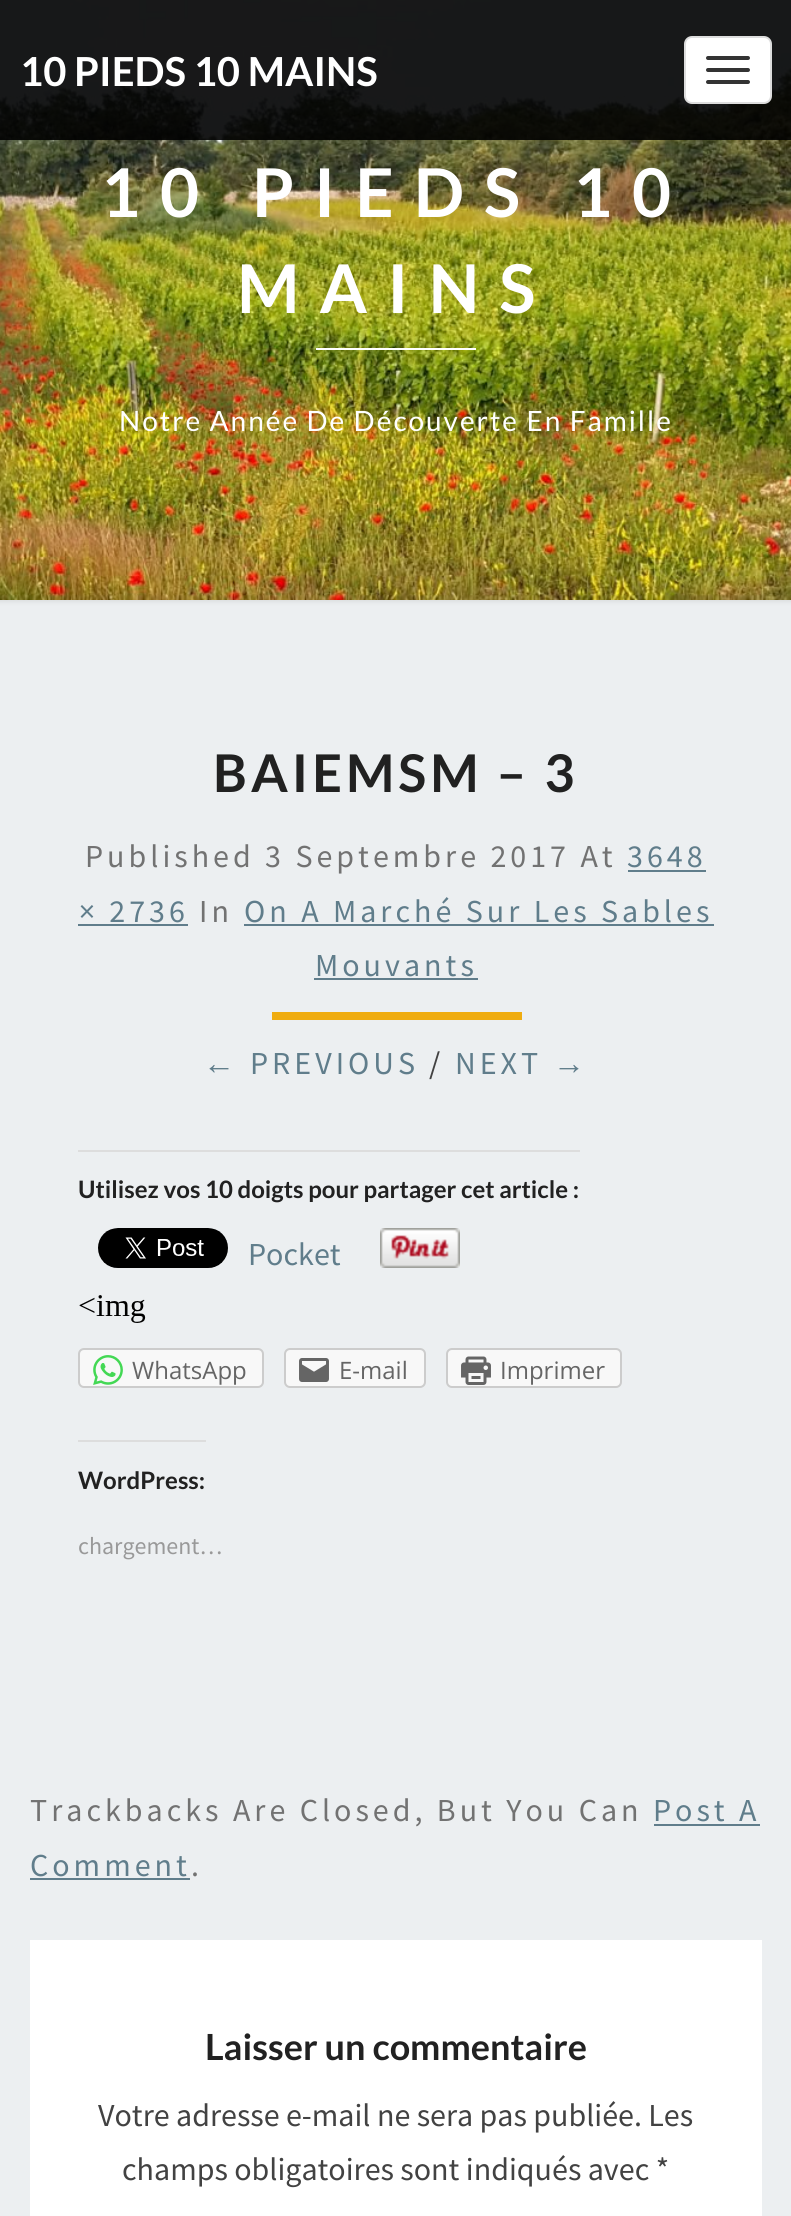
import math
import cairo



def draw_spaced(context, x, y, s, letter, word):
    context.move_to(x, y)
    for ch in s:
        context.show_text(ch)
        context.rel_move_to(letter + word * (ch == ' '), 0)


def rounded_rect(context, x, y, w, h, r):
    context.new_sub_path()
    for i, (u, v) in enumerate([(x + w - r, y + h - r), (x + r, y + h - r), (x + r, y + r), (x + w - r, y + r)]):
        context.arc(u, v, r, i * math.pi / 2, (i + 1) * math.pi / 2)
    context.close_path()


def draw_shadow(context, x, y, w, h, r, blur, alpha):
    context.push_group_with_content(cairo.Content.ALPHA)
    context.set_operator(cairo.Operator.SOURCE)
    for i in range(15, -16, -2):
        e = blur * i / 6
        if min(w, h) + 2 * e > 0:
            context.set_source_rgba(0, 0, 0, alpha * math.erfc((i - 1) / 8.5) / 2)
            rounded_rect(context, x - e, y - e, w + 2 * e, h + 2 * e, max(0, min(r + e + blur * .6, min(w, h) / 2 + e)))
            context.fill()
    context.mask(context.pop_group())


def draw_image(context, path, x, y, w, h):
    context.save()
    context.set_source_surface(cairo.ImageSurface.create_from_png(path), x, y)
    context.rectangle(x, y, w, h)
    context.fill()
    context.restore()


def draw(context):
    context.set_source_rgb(236 / 255, 239 / 255, 241 / 255)
    context.paint()
    context.set_source_rgb(182 / 255, 182 / 255, 182 / 255)
    draw_shadow(context, -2, -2, 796, 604, 0, 2, 0.3)
    draw_image(context, "images/1.png", 0, 0, 791, 600)
    context.set_source_rgba(0, 0, 0, 0.9)
    context.rectangle(0, 0, 791, 140)
    context.fill()
    context.set_source_rgb(1, 1, 1)
    rounded_rect(context, 685, 37, 86, 66, 7)
    context.fill_preserve()
    context.set_source_rgb(221 / 255, 221 / 255, 221 / 255)
    context.stroke()
    context.set_source_rgb(51 / 255, 51 / 255, 51 / 255)
    rounded_rect(context, 706, 56, 44, 4, 2)
    context.fill()
    rounded_rect(context, 706, 68, 44, 4, 2)
    context.fill()
    rounded_rect(context, 706, 80, 44, 4, 2)
    context.fill()
    context.set_source_rgb(1, 1, 1)
    context.rectangle(316, 348, 160, 2)
    context.fill()
    context.set_source_rgb(96 / 255, 125 / 255, 139 / 255)
    context.rectangle(628, 870, 78, 2)
    context.fill()
    context.rectangle(78, 924, 110, 2)
    context.fill()
    context.rectangle(244, 924, 470, 2)
    context.fill()
    context.rectangle(314, 978, 164, 2)
    context.fill()
    context.set_source_rgb(239 / 255, 172 / 255, 16 / 255)
    context.rectangle(272, 1012, 250, 8)
    context.fill()
    context.set_source_rgb(221 / 255, 221 / 255, 221 / 255)
    context.rectangle(78, 1150, 502, 2)
    context.fill()
    draw_image(context, "images/2.png", 98, 1228, 130, 40)
    draw_image(context, "images/3.png", 380, 1228, 80, 40)
    draw_image(context, "images/4.png", 79, 1295, 67, 28)
    context.set_source_rgb(248 / 255, 248 / 255, 248 / 255)
    rounded_rect(context, 79, 1349, 184, 38, 5)
    context.fill_preserve()
    context.set_source_rgb(204 / 255, 204 / 255, 204 / 255)
    context.stroke()
    draw_image(context, "images/5.png", 93, 1355, 30, 30)
    context.set_source_rgb(248 / 255, 248 / 255, 248 / 255)
    rounded_rect(context, 285, 1349, 140, 38, 5)
    context.fill_preserve()
    context.set_source_rgb(204 / 255, 204 / 255, 204 / 255)
    context.stroke()
    draw_image(context, "images/6.png", 299, 1358, 30, 24)
    context.set_source_rgb(248 / 255, 248 / 255, 248 / 255)
    rounded_rect(context, 447, 1349, 174, 38, 5)
    context.fill_preserve()
    context.set_source_rgb(204 / 255, 204 / 255, 204 / 255)
    context.stroke()
    draw_image(context, "images/7.png", 461, 1356, 30, 29)
    context.set_source_rgb(221 / 255, 221 / 255, 221 / 255)
    context.rectangle(78, 1440, 128, 2)
    context.fill()
    context.set_source_rgb(96 / 255, 125 / 255, 139 / 255)
    context.rectangle(654, 1824, 106, 2)
    context.fill()
    context.rectangle(30, 1878, 160, 2)
    context.fill()
    context.set_source_rgb(1, 1, 1)
    context.rectangle(30, 1940, 732, 276)
    context.fill()
    context.select_font_face("Lato", cairo.FontSlant.NORMAL, cairo.FontWeight.BOLD)
    context.set_font_size(40)
    context.move_to(20, 86)
    context.show_text("10 PIEDS 10 MAINS")
    context.set_font_size(67.25)
    draw_spaced(context, 101, 217, "10 PIEDS 10", 20, 0)
    draw_spaced(context, 237, 313, "MAINS", 20, 0)
    context.select_font_face("Lato")
    context.set_font_size(28)
    draw_spaced(context, 119, 431, "Notre Année De Découverte En Famille", 2, 0)
    context.select_font_face("Lato", cairo.FontSlant.NORMAL, cairo.FontWeight.BOLD)
    context.set_font_size(52)
    context.set_source_rgb(33 / 255, 33 / 255, 33 / 255)
    draw_spaced(context, 213, 792, "BAIEMSM – 3", 4, 0)
    context.select_font_face("Source Sans Pro")
    context.set_font_size(32)
    context.set_source_rgb(114 / 255, 114 / 255, 114 / 255)
    draw_spaced(context, 85, 867, "Published 3 Septembre 2017 At", 4, 0)
    context.set_source_rgb(96 / 255, 125 / 255, 139 / 255)
    draw_spaced(context, 627, 867, "3648", 4, 0)
    draw_spaced(context, 79, 922, "× 2736", 4, 0)
    context.set_source_rgb(114 / 255, 114 / 255, 114 / 255)
    draw_spaced(context, 199, 922, "In", 4, 0)
    context.set_source_rgb(96 / 255, 125 / 255, 139 / 255)
    draw_spaced(context, 244, 922, "On A Marché Sur Les Sables", 4, 0)
    draw_spaced(context, 315, 976, "Mouvants", 4, 0)
    context.select_font_face("Liberation Sans")
    draw_spaced(context, 203, 1074, "←", 4, 0)
    context.select_font_face("Source Sans Pro")
    draw_spaced(context, 250, 1074, "PREVIOUS", 4, 0)
    context.set_source_rgb(66 / 255, 66 / 255, 66 / 255)
    draw_spaced(context, 429, 1074, "/", 4, 0)
    context.set_source_rgb(96 / 255, 125 / 255, 139 / 255)
    draw_spaced(context, 455, 1074, "NEXT", 4, 0)
    context.select_font_face("Liberation Sans")
    draw_spaced(context, 553, 1074, "→", 4, 0)
    context.select_font_face("Lato", cairo.FontSlant.NORMAL, cairo.FontWeight.BOLD)
    context.set_font_size(24)
    context.set_source_rgb(33 / 255, 33 / 255, 33 / 255)
    context.move_to(78, 1198)
    context.show_text("Utilisez vos 10 doigts pour partager cet article :")
    context.select_font_face("Source Sans Pro")
    context.set_font_size(32)
    context.set_source_rgb(96 / 255, 125 / 255, 139 / 255)
    context.move_to(248, 1265)
    context.show_text("Pocket")
    context.select_font_face("Open Sans")
    context.set_font_size(24)
    context.set_source_rgb(101 / 255, 101 / 255, 101 / 255)
    context.move_to(132, 1379)
    context.show_text("WhatsApp")
    context.move_to(339, 1379)
    context.show_text("E-mail")
    context.move_to(500, 1379)
    context.show_text("Imprimer")
    context.select_font_face("Lato", cairo.FontSlant.NORMAL, cairo.FontWeight.BOLD)
    context.set_source_rgb(33 / 255, 33 / 255, 33 / 255)
    context.move_to(78, 1489)
    context.show_text("WordPress:")
    context.select_font_face("Source Sans Pro")
    context.set_source_rgb(153 / 255, 153 / 255, 153 / 255)
    context.move_to(78, 1554)
    context.show_text("chargement…")
    context.set_font_size(32)
    context.set_source_rgb(114 / 255, 114 / 255, 114 / 255)
    draw_spaced(context, 30, 1821, "Trackbacks Are Closed, But You Can", 4, 0)
    context.set_source_rgb(96 / 255, 125 / 255, 139 / 255)
    draw_spaced(context, 653, 1821, "Post A", 4, 0)
    draw_spaced(context, 30, 1876, "Comment", 4, 0)
    context.set_source_rgb(114 / 255, 114 / 255, 114 / 255)
    draw_spaced(context, 191, 1876, ".", 4, 0)
    context.select_font_face("Lato", cairo.FontSlant.NORMAL, cairo.FontWeight.BOLD)
    context.set_font_size(36)
    context.set_source_rgb(33 / 255, 33 / 255, 33 / 255)
    context.move_to(205, 2060)
    context.show_text("Laisser un commentaire")
    context.select_font_face("Source Sans Pro")
    context.set_font_size(32)
    context.set_source_rgb(66 / 255, 66 / 255, 66 / 255)
    context.move_to(98, 2126)
    context.show_text("Votre adresse e-mail ne sera pas publiée. Les")
    context.move_to(122, 2180)
    context.show_text("champs obligatoires sont indiqués avec *")


surface = cairo.ImageSurface(cairo.Format.RGB24, 791, 2216)
context = cairo.Context(surface)
options = cairo.FontOptions()
options.set_hint_metrics(cairo.HintMetrics.OFF)
options.set_hint_style(cairo.HintStyle.NONE)
context.set_font_options(options)
context.set_miter_limit(4)
draw(context)
surface.write_to_png("out.png")
